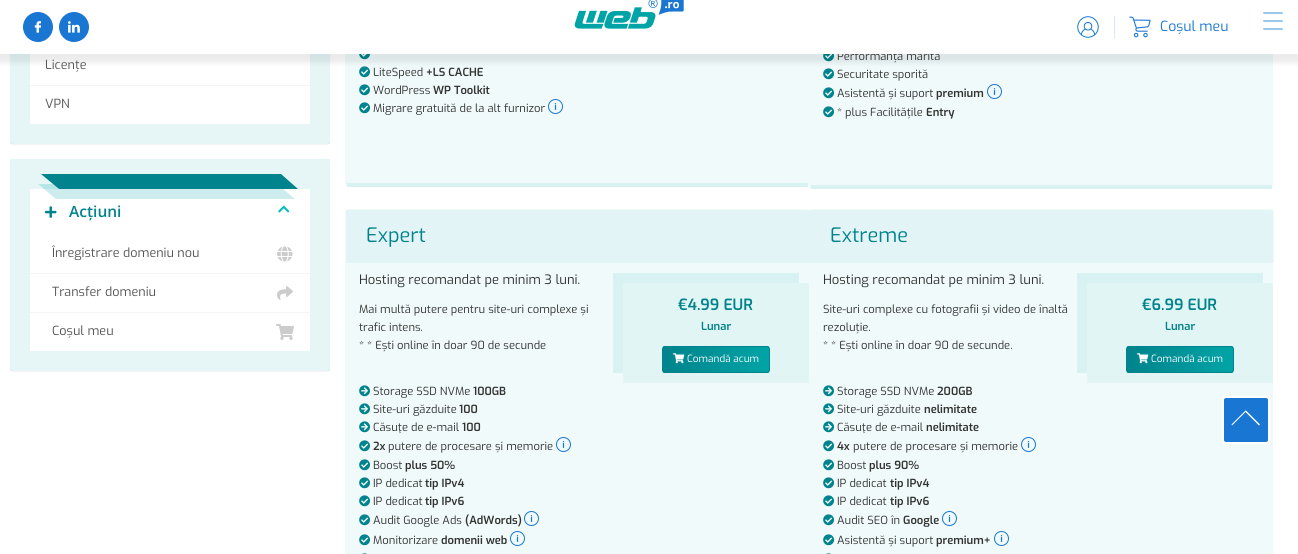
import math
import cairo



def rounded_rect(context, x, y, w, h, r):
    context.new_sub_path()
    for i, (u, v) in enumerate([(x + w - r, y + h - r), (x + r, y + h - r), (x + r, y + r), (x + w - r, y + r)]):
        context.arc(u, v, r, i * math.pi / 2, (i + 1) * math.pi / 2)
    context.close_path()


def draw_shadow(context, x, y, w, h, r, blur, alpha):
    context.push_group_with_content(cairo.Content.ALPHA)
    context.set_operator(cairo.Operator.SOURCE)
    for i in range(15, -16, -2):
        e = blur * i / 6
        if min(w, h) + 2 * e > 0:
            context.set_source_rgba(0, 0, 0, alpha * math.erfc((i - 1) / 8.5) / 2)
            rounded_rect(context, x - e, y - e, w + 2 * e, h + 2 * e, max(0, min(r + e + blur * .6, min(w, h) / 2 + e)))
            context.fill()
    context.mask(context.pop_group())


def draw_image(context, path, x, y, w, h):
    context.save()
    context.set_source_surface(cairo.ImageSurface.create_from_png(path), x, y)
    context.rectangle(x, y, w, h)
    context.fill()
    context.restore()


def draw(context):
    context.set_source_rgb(1, 1, 1)
    context.paint()
    context.set_source_rgb(230 / 255, 246 / 255, 246 / 255)
    context.rectangle(10, 54, 320, 90)
    context.fill()
    context.set_source_rgb(1, 1, 1)
    context.rectangle(30, 54, 280, 70)
    context.fill()
    context.set_source_rgb(240 / 255, 250 / 255, 250 / 255)
    rounded_rect(context, 345, -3, 464, 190, 3)
    context.fill()
    draw_image(context, "images/11.png", 359, 54, 11, 6)
    draw_image(context, "images/12.png", 359, 66, 11, 12)
    rounded_rect(context, 809, -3, 464, 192, 3)
    context.fill()
    draw_image(context, "images/14.png", 823, 54, 11, 8)
    draw_image(context, "images/12.png", 823, 68, 11, 12)
    context.set_source_rgb(0, 0, 0)
    draw_shadow(context, -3, -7, 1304, 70, 0, 2.5, 0.08)
    context.save()
    context.set_fill_rule(cairo.FillRule.EVEN_ODD)
    context.new_path()
    context.move_to(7, 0)
    context.line_to(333, 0)
    context.line_to(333, 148)
    context.line_to(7, 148)
    context.close_path()
    context.move_to(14, -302)
    context.line_to(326, -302)
    context.curve_to(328, -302, 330, -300, 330, -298)
    context.line_to(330, 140)
    context.curve_to(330, 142, 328, 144, 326, 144)
    context.line_to(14, 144)
    context.curve_to(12, 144, 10, 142, 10, 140)
    context.line_to(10, -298)
    context.curve_to(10, -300, 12, -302, 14, -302)
    context.close_path()
    context.clip()
    draw_shadow(context, 10, -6, 320, 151, 4, 0.5, 0.05)
    context.restore()
    context.set_source_rgb(245 / 255, 245 / 255, 245 / 255)
    context.rectangle(30, 85, 280, 1)
    context.fill()
    context.set_source_rgb(230 / 255, 246 / 255, 246 / 255)
    context.rectangle(10, 159, 320, 212)
    context.fill()
    context.set_source_rgb(1, 1, 1)
    context.rectangle(30, 189, 280, 162)
    context.fill()
    context.save()
    context.set_fill_rule(cairo.FillRule.EVEN_ODD)
    context.new_path()
    context.move_to(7, 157)
    context.line_to(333, 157)
    context.line_to(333, 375)
    context.line_to(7, 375)
    context.close_path()
    context.move_to(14, 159)
    context.line_to(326, 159)
    context.curve_to(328, 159, 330, 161, 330, 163)
    context.line_to(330, 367)
    context.curve_to(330, 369, 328, 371, 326, 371)
    context.line_to(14, 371)
    context.curve_to(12, 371, 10, 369, 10, 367)
    context.line_to(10, 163)
    context.curve_to(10, 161, 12, 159, 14, 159)
    context.close_path()
    context.clip()
    context.set_source_rgb(0, 0, 0)
    draw_shadow(context, 10, 160, 320, 212, 4, 0.5, 0.05)
    context.restore()
    context.set_source_rgba(0, 164 / 255, 166 / 255, 0.2)
    context.new_path()
    context.move_to(38, 184)
    context.line_to(56, 199)
    context.line_to(295, 199)
    context.line_to(283, 189)
    context.line_to(59, 189)
    context.line_to(53, 184)
    context.close_path()
    context.fill()
    context.set_source_rgb(0, 131 / 255, 140 / 255)
    context.new_path()
    context.move_to(41, 174)
    context.line_to(281, 174)
    context.line_to(298, 189)
    context.line_to(59, 189)
    context.close_path()
    context.fill()
    draw_image(context, "images/6.png", 45, 206, 12, 12)
    draw_image(context, "images/7.png", 278, 205, 12, 8)
    context.set_source_rgb(245 / 255, 245 / 255, 245 / 255)
    context.rectangle(30, 273, 280, 1)
    context.fill()
    draw_image(context, "images/8.png", 277, 246, 16, 16)
    draw_image(context, "images/9.png", 277, 286, 16, 14)
    context.rectangle(30, 312, 280, 1)
    context.fill()
    draw_image(context, "images/10.png", 276, 324, 18, 16)
    context.set_source_rgba(0, 164 / 255, 166 / 255, 0.1)
    context.rectangle(347, 183, 461, 4)
    context.fill()
    draw_image(context, "images/12.png", 359, 84, 11, 12)
    draw_image(context, "images/12.png", 359, 102, 11, 12)
    draw_image(context, "images/13.png", 554, 103, 3, 7)
    context.arc(555.5, 106.5, 7, 0, 2 * math.pi)
    context.set_source_rgb(25 / 255, 118 / 255, 210 / 255)
    context.set_line_width(1)
    context.stroke()
    context.set_source_rgba(0, 164 / 255, 166 / 255, 0.1)
    context.rectangle(811, 185, 461, 4)
    context.fill()
    draw_image(context, "images/12.png", 823, 87, 11, 12)
    draw_image(context, "images/13.png", 993, 88, 3, 7)
    context.arc(994.5, 91.5, 7, 0, 2 * math.pi)
    context.set_source_rgb(25 / 255, 118 / 255, 210 / 255)
    context.stroke()
    draw_image(context, "images/12.png", 823, 106, 11, 12)
    context.set_source_rgb(240 / 255, 250 / 255, 250 / 255)
    rounded_rect(context, 345, 209, 464, 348, 3)
    context.fill()
    rounded_rect(context, 809, 209, 464, 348, 3)
    context.fill()
    context.set_source_rgba(0, 164 / 255, 166 / 255, 0.06)
    context.rectangle(346, 210, 464, 53)
    context.fill()
    draw_image(context, "images/15.png", 359, 385, 11, 12)
    draw_image(context, "images/15.png", 359, 403, 11, 12)
    draw_image(context, "images/15.png", 359, 421, 11, 12)
    draw_image(context, "images/12.png", 359, 440, 11, 12)
    draw_image(context, "images/13.png", 562, 441, 3, 7)
    context.arc(563.5, 444.5, 7, 0, 2 * math.pi)
    context.set_source_rgb(25 / 255, 118 / 255, 210 / 255)
    context.stroke()
    draw_image(context, "images/12.png", 359, 459, 11, 12)
    draw_image(context, "images/12.png", 359, 477, 11, 12)
    draw_image(context, "images/12.png", 359, 495, 11, 12)
    draw_image(context, "images/12.png", 359, 514, 11, 12)
    draw_image(context, "images/13.png", 530, 515, 3, 7)
    context.arc(531.5, 518.5, 7, 0, 2 * math.pi)
    context.stroke()
    draw_image(context, "images/12.png", 359, 534, 11, 12)
    draw_image(context, "images/13.png", 516, 535, 3, 7)
    context.arc(517.5, 538.5, 7, 0, 2 * math.pi)
    context.stroke()
    draw_image(context, "images/16.png", 362, 553, 5, 1)
    context.set_source_rgb(216 / 255, 241 / 255, 242 / 255)
    context.new_path()
    context.move_to(613, 273)
    context.line_to(613, 373)
    context.line_to(623, 373)
    context.line_to(623, 283)
    context.line_to(799, 283)
    context.line_to(799, 273)
    context.close_path()
    context.fill()
    context.set_source_rgb(226 / 255, 245 / 255, 245 / 255)
    context.rectangle(623, 283, 186, 100)
    context.fill()
    context.save()
    rounded_rect(context, 662, 346, 108, 27, 3)
    context.clip()
    gradient = cairo.LinearGradient(663, 360, 769, 360)
    gradient.add_color_stop_rgba(0, 0, 131 / 255, 140 / 255, 1)
    gradient.add_color_stop_rgba(1, 0, 164 / 255, 166 / 255, 1)
    context.set_source(gradient)
    context.rectangle(663, 346, 106, 27)
    context.fill()
    context.restore()
    rounded_rect(context, 662.5, 346.5, 107, 26, 2.5)
    context.set_source_rgb(0, 131 / 255, 140 / 255)
    context.stroke()
    draw_image(context, "images/17.png", 673, 353, 12, 11)
    context.set_source_rgba(0, 164 / 255, 166 / 255, 0.06)
    context.rectangle(810, 210, 464, 53)
    context.fill()
    draw_image(context, "images/15.png", 823, 385, 11, 12)
    draw_image(context, "images/15.png", 823, 403, 11, 12)
    draw_image(context, "images/15.png", 823, 421, 11, 12)
    draw_image(context, "images/12.png", 823, 440, 11, 12)
    draw_image(context, "images/13.png", 1027, 441, 3, 7)
    context.arc(1028.5, 444.5, 7, 0, 2 * math.pi)
    context.set_source_rgb(25 / 255, 118 / 255, 210 / 255)
    context.stroke()
    draw_image(context, "images/12.png", 823, 459, 11, 12)
    draw_image(context, "images/12.png", 823, 477, 11, 12)
    draw_image(context, "images/12.png", 823, 495, 11, 12)
    draw_image(context, "images/12.png", 823, 514, 11, 12)
    draw_image(context, "images/13.png", 948, 515, 3, 7)
    context.arc(949.5, 518.5, 7, 0, 2 * math.pi)
    context.stroke()
    draw_image(context, "images/12.png", 823, 534, 11, 12)
    draw_image(context, "images/13.png", 1000, 535, 3, 7)
    context.arc(1001.5, 538.5, 7, 0, 2 * math.pi)
    context.stroke()
    draw_image(context, "images/16.png", 826, 553, 5, 1)
    context.set_source_rgb(216 / 255, 241 / 255, 242 / 255)
    context.new_path()
    context.move_to(1077, 273)
    context.line_to(1077, 373)
    context.line_to(1087, 373)
    context.line_to(1087, 283)
    context.line_to(1263, 283)
    context.line_to(1263, 273)
    context.close_path()
    context.fill()
    context.set_source_rgb(226 / 255, 245 / 255, 245 / 255)
    context.rectangle(1087, 283, 186, 100)
    context.fill()
    context.save()
    rounded_rect(context, 1126, 346, 108, 27, 3)
    context.clip()
    gradient = cairo.LinearGradient(1127, 360, 1233, 360)
    gradient.add_color_stop_rgba(0, 0, 131 / 255, 140 / 255, 1)
    gradient.add_color_stop_rgba(1, 0, 164 / 255, 166 / 255, 1)
    context.set_source(gradient)
    context.rectangle(1127, 346, 106, 27)
    context.fill()
    context.restore()
    rounded_rect(context, 1126.5, 346.5, 107, 26, 2.5)
    context.set_source_rgb(0, 131 / 255, 140 / 255)
    context.stroke()
    draw_image(context, "images/17.png", 1137, 353, 12, 11)
    context.set_source_rgb(25 / 255, 118 / 255, 210 / 255)
    rounded_rect(context, 1223, 397, 46, 46, 3)
    context.fill_preserve()
    context.set_source_rgb(1, 1, 1)
    context.set_line_width(2)
    context.stroke()
    context.new_path()
    context.move_to(1260, 424.5)
    context.line_to(1259, 425.5)
    context.line_to(1245, 411.5)
    context.line_to(1246, 410.5)
    context.close_path()
    context.fill()
    context.new_path()
    context.move_to(1245.5, 410.5)
    context.line_to(1246, 411.5)
    context.line_to(1232, 425.5)
    context.line_to(1231.5, 424.5)
    context.close_path()
    context.fill()
    context.select_font_face("Exo")
    context.set_font_size(12.6)
    context.set_source_rgb(85 / 255, 85 / 255, 85 / 255)
    context.move_to(45, 69)
    context.show_text("Licențe")
    context.move_to(45, 108)
    context.show_text("VPN")
    context.select_font_face("Open Sans SemiBold")
    context.set_font_size(15.5)
    context.set_source_rgb(0, 131 / 255, 140 / 255)
    context.move_to(69, 217)
    context.show_text("Acțiuni")
    context.select_font_face("Exo")
    context.set_font_size(12.6)
    context.set_source_rgb(85 / 255, 85 / 255, 85 / 255)
    context.move_to(52, 257)
    context.show_text("Înregistrare domeniu nou")
    context.move_to(52, 296)
    context.show_text("Transfer domeniu")
    context.move_to(52, 335)
    context.show_text("Coșul meu")
    context.set_font_size(11.2)
    context.set_source_rgb(51 / 255, 51 / 255, 51 / 255)
    context.move_to(373, 76)
    context.show_text("LiteSpeed")
    context.select_font_face("Exo SemiBold")
    context.move_to(426, 76)
    context.show_text("+LS CACHE")
    context.select_font_face("Exo")
    context.move_to(373, 94)
    context.show_text("WordPress")
    context.select_font_face("Exo SemiBold")
    context.move_to(433, 94)
    context.show_text("WP Toolkit")
    context.select_font_face("Exo")
    context.move_to(373, 112)
    context.show_text("Migrare gratuită de la alt furnizor")
    context.move_to(837, 60)
    context.show_text("Performanță mărită")
    context.set_source_rgb(1, 1, 1)
    context.rectangle(0, 0, 1298, 54)
    context.fill()
    draw_image(context, "images/3.png", 574, 0, 110, 29)
    context.set_source_rgb(154 / 255, 199 / 255, 236 / 255)
    rounded_rect(context, 1263, 28, 20, 2, 1)
    context.fill()
    rounded_rect(context, 1263, 20, 20, 2, 1)
    context.fill()
    rounded_rect(context, 1263, 12, 20, 2, 1)
    context.fill()
    draw_image(context, "images/5.png", 1129, 16, 22, 22)
    context.set_font_size(14)
    context.set_source_rgb(25 / 255, 118 / 255, 210 / 255)
    context.move_to(1160, 31)
    context.show_text("Coșul meu")
    context.set_source_rgb(215 / 255, 233 / 255, 247 / 255)
    context.rectangle(1114, 16, 1, 23)
    context.fill()
    draw_image(context, "images/4.png", 1077, 16, 22, 22)
    context.set_source_rgb(25 / 255, 118 / 255, 210 / 255)
    context.arc(74, 27, 15, 0, 2 * math.pi)
    context.fill()
    draw_image(context, "images/2.png", 67, 21, 13, 12)
    context.arc(38, 27, 15, 0, 2 * math.pi)
    context.fill()
    draw_image(context, "images/1.png", 34, 21, 7, 12)
    context.set_font_size(11.2)
    context.set_source_rgb(51 / 255, 51 / 255, 51 / 255)
    context.move_to(837, 78)
    context.show_text("Securitate sporită")
    context.move_to(837, 97)
    context.show_text("Asistentă și suport")
    context.select_font_face("Exo SemiBold")
    context.move_to(936, 97)
    context.show_text("premium")
    context.select_font_face("Exo")
    context.move_to(837, 116)
    context.show_text("* plus Facilitățile")
    context.select_font_face("Exo SemiBold")
    context.move_to(926, 116)
    context.show_text("Entry")
    context.select_font_face("Exo")
    context.set_font_size(20)
    context.set_source_rgb(0, 131 / 255, 140 / 255)
    context.move_to(366, 242)
    context.show_text("Expert")
    context.set_font_size(13)
    context.set_source_rgb(51 / 255, 51 / 255, 51 / 255)
    context.move_to(359, 284)
    context.show_text("Hosting recomandat pe minim 3 luni.")
    context.set_font_size(11.2)
    context.move_to(359, 313)
    context.show_text("Mai multă putere pentru site-uri complexe și")
    context.move_to(359, 331)
    context.show_text("trafic intens.")
    context.move_to(359, 349)
    context.show_text("* * Ești online în doar 90 de secunde")
    context.move_to(373, 395)
    context.show_text("Storage SSD NVMe")
    context.select_font_face("Exo SemiBold")
    context.move_to(473, 395)
    context.show_text("100GB")
    context.select_font_face("Exo")
    context.move_to(373, 413)
    context.show_text("Site-uri găzduite")
    context.select_font_face("Exo SemiBold")
    context.move_to(459, 413)
    context.show_text("100")
    context.select_font_face("Exo")
    context.move_to(373, 431)
    context.show_text("Căsuţe de e-mail")
    context.select_font_face("Exo SemiBold")
    context.move_to(462, 431)
    context.show_text("100")
    context.move_to(373, 450)
    context.show_text("2x")
    context.select_font_face("Exo")
    context.move_to(388, 450)
    context.show_text("putere de procesare și memorie")
    context.move_to(373, 469)
    context.show_text("Boost")
    context.select_font_face("Exo SemiBold")
    context.move_to(405, 469)
    context.show_text("plus 50%")
    context.select_font_face("Exo")
    context.move_to(373, 487)
    context.show_text("IP dedicat")
    context.select_font_face("Exo SemiBold")
    context.move_to(425, 487)
    context.show_text("tip IPv4")
    context.select_font_face("Exo")
    context.move_to(373, 505)
    context.show_text("IP dedicat")
    context.select_font_face("Exo SemiBold")
    context.move_to(425, 505)
    context.show_text("tip IPv6")
    context.select_font_face("Exo")
    context.move_to(373, 524)
    context.show_text("Audit Google Ads")
    context.select_font_face("Exo SemiBold")
    context.move_to(465, 524)
    context.show_text("(AdWords)")
    context.select_font_face("Exo")
    context.move_to(373, 544)
    context.show_text("Monitorizare")
    context.select_font_face("Exo SemiBold")
    context.move_to(441, 544)
    context.show_text("domenii web")
    context.set_font_size(15.5)
    context.set_source_rgb(0, 131 / 255, 140 / 255)
    context.move_to(678, 310)
    context.show_text("€4.99 EUR")
    context.set_font_size(11.2)
    context.move_to(701, 330)
    context.show_text("Lunar")
    context.select_font_face("Exo")
    context.set_font_size(10)
    context.set_source_rgb(1, 1, 1)
    context.move_to(687, 362)
    context.show_text("Comandă acum")
    context.set_font_size(20)
    context.set_source_rgb(0, 131 / 255, 140 / 255)
    context.move_to(830, 242)
    context.show_text("Extreme")
    context.set_font_size(13)
    context.set_source_rgb(51 / 255, 51 / 255, 51 / 255)
    context.move_to(823, 284)
    context.show_text("Hosting recomandat pe minim 3 luni.")
    context.set_font_size(11.2)
    context.move_to(823, 313)
    context.show_text("Site-uri complexe cu fotografii și video de înaltă")
    context.move_to(823, 331)
    context.show_text("rezoluție.")
    context.move_to(823, 349)
    context.show_text("* * Ești online în doar 90 de secunde.")
    context.move_to(837, 395)
    context.show_text("Storage SSD NVMe")
    context.select_font_face("Exo SemiBold")
    context.move_to(937, 395)
    context.show_text("200GB")
    context.select_font_face("Exo")
    context.move_to(837, 413)
    context.show_text("Site-uri găzduite")
    context.select_font_face("Exo SemiBold")
    context.move_to(924, 413)
    context.show_text("nelimitate")
    context.select_font_face("Exo")
    context.move_to(837, 431)
    context.show_text("Căsuţe de e-mail")
    context.select_font_face("Exo SemiBold")
    context.move_to(926, 431)
    context.show_text("nelimitate")
    context.move_to(837, 450)
    context.show_text("4x")
    context.select_font_face("Exo")
    context.move_to(853, 450)
    context.show_text("putere de procesare și memorie")
    context.move_to(837, 469)
    context.show_text("Boost")
    context.select_font_face("Exo SemiBold")
    context.move_to(869, 469)
    context.show_text("plus 90%")
    context.select_font_face("Exo")
    context.move_to(837, 487)
    context.show_text("IP dedicat")
    context.select_font_face("Exo SemiBold")
    context.move_to(890, 487)
    context.show_text("tip IPv4")
    context.select_font_face("Exo")
    context.move_to(837, 505)
    context.show_text("IP dedicat")
    context.select_font_face("Exo SemiBold")
    context.move_to(890, 505)
    context.show_text("tip IPv6")
    context.select_font_face("Exo")
    context.move_to(837, 524)
    context.show_text("Audit SEO în")
    context.select_font_face("Exo SemiBold")
    context.move_to(903, 524)
    context.show_text("Google")
    context.select_font_face("Exo")
    context.move_to(837, 544)
    context.show_text("Asistentă și suport")
    context.select_font_face("Exo SemiBold")
    context.move_to(936, 544)
    context.show_text("premium+")
    context.set_font_size(15.5)
    context.set_source_rgb(0, 131 / 255, 140 / 255)
    context.move_to(1142, 310)
    context.show_text("€6.99 EUR")
    context.set_font_size(11.2)
    context.move_to(1165, 330)
    context.show_text("Lunar")
    context.select_font_face("Exo")
    context.set_font_size(10)
    context.set_source_rgb(1, 1, 1)
    context.move_to(1151, 362)
    context.show_text("Comandă acum")


surface = cairo.ImageSurface(cairo.Format.RGB24, 1298, 554)
context = cairo.Context(surface)
options = cairo.FontOptions()
options.set_hint_metrics(cairo.HintMetrics.OFF)
options.set_hint_style(cairo.HintStyle.NONE)
context.set_font_options(options)
context.set_miter_limit(4)
draw(context)
surface.write_to_png("out.png")
